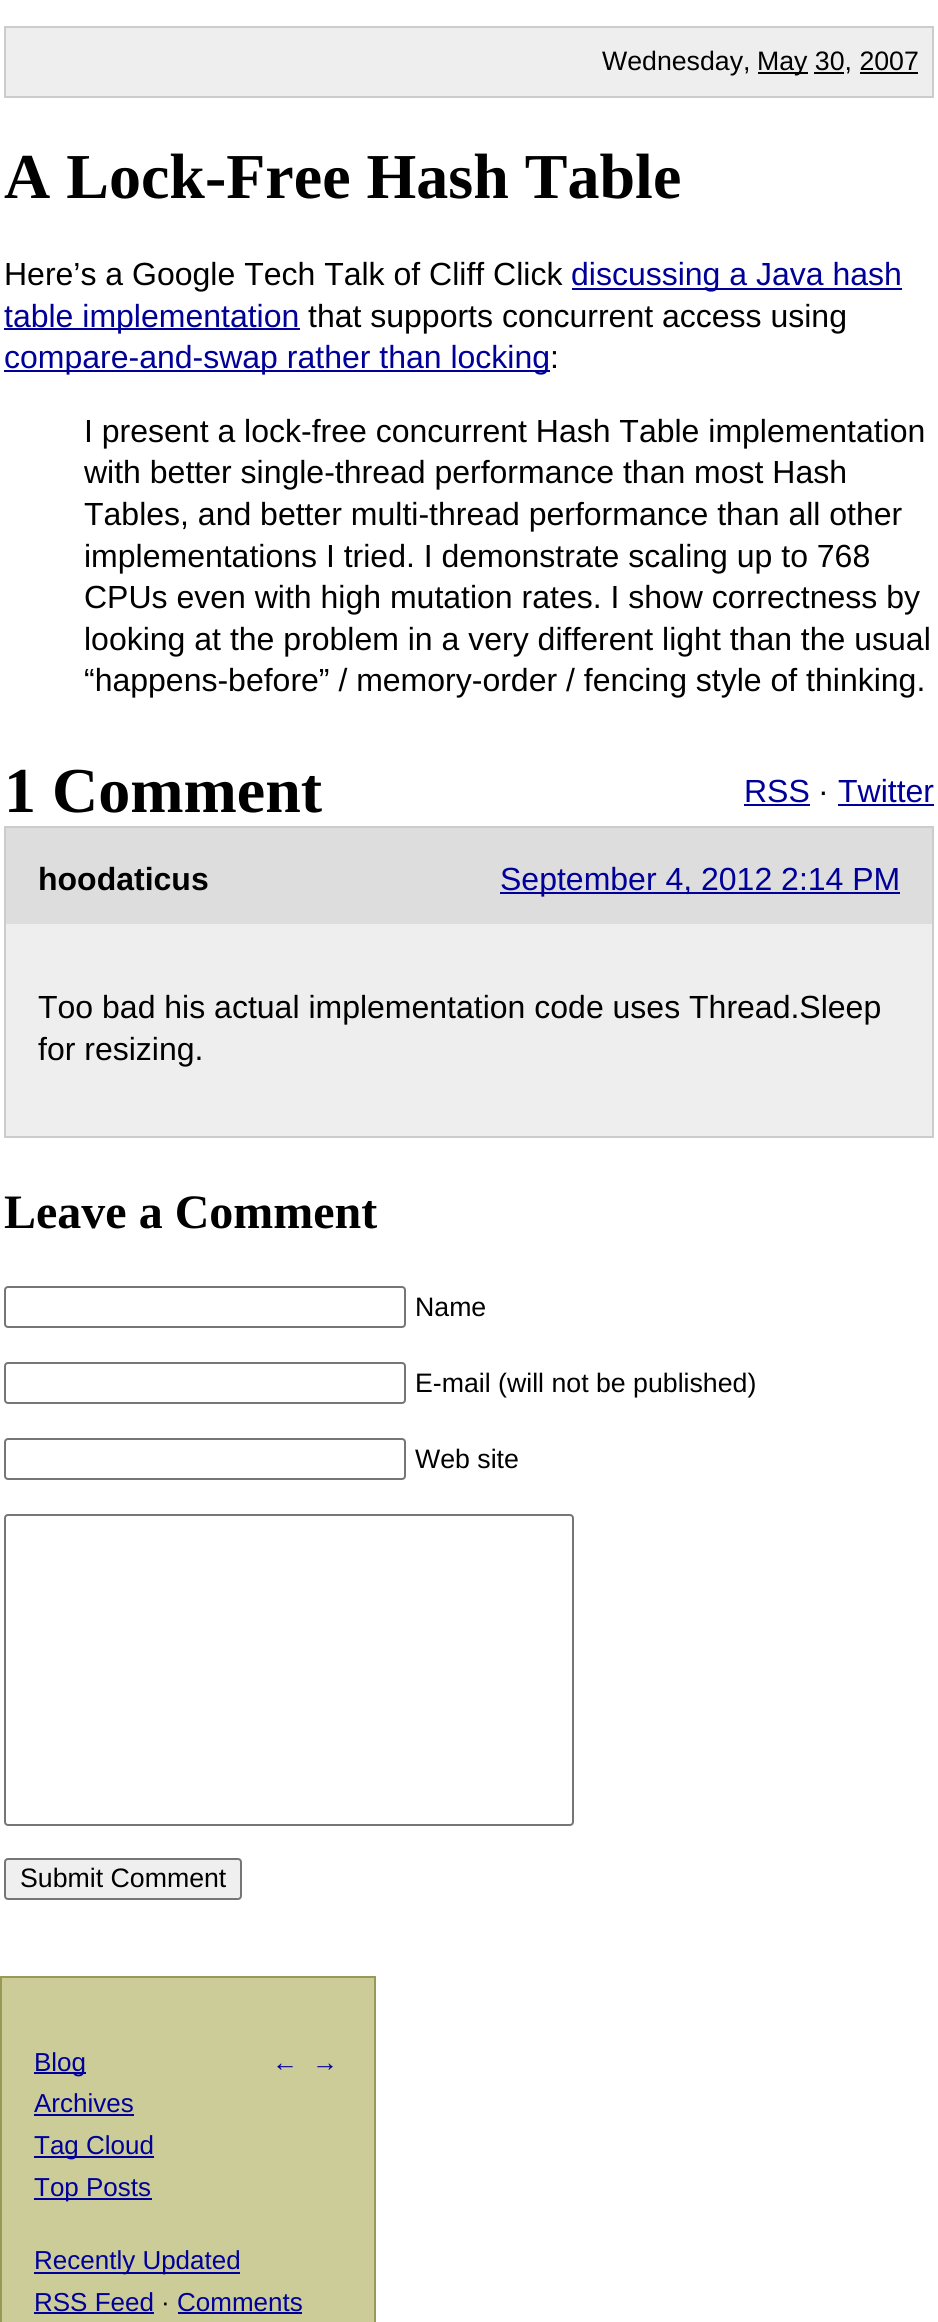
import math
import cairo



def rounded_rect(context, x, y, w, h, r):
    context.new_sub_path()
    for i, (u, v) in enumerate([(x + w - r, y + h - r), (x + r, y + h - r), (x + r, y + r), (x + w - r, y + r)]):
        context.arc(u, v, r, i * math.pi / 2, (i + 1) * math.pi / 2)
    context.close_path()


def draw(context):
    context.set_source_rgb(1, 1, 1)
    context.paint()
    context.set_source_rgb(238 / 255, 238 / 255, 238 / 255)
    context.rectangle(5, 27, 928, 70)
    context.fill_preserve()
    context.set_source_rgb(204 / 255, 204 / 255, 204 / 255)
    context.stroke()
    context.set_source_rgb(0, 0, 0)
    context.rectangle(758, 72, 50, 2)
    context.fill()
    context.rectangle(814, 72, 30, 2)
    context.fill()
    context.rectangle(860, 72, 58, 2)
    context.fill()
    context.set_source_rgb(0, 0, 153 / 255)
    context.rectangle(572, 288, 330, 2)
    context.fill()
    context.rectangle(4, 328, 296, 2)
    context.fill()
    context.rectangle(4, 370, 546, 2)
    context.fill()
    context.rectangle(744, 804, 66, 2)
    context.fill()
    context.rectangle(838, 804, 96, 2)
    context.fill()
    context.set_source_rgb(238 / 255, 238 / 255, 238 / 255)
    context.rectangle(6, 924, 926, 212)
    context.fill()
    context.rectangle(5, 827, 928, 310)
    context.set_source_rgb(204 / 255, 204 / 255, 204 / 255)
    context.stroke()
    context.set_source_rgb(221 / 255, 221 / 255, 221 / 255)
    context.rectangle(6, 828, 926, 96)
    context.fill()
    context.set_source_rgb(0, 0, 153 / 255)
    context.rectangle(500, 892, 400, 2)
    context.fill()
    rounded_rect(context, 5, 1287, 400, 40, 3)
    context.set_source_rgb(118 / 255, 118 / 255, 118 / 255)
    context.stroke()
    rounded_rect(context, 5, 1363, 400, 40, 3)
    context.stroke()
    rounded_rect(context, 5, 1439, 400, 40, 3)
    context.stroke()
    rounded_rect(context, 5, 1515, 568, 310, 3)
    context.stroke()
    context.set_source_rgb(239 / 255, 239 / 255, 239 / 255)
    rounded_rect(context, 5, 1859, 236, 40, 3)
    context.fill_preserve()
    context.set_source_rgb(118 / 255, 118 / 255, 118 / 255)
    context.stroke()
    context.set_source_rgb(204 / 255, 204 / 255, 153 / 255)
    context.rectangle(1, 1977, 374, 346)
    context.fill_preserve()
    context.set_source_rgb(153 / 255, 153 / 255, 85 / 255)
    context.stroke()
    context.set_source_rgb(0, 0, 153 / 255)
    context.rectangle(34, 2072, 52, 2)
    context.fill()
    context.rectangle(34, 2114, 100, 2)
    context.fill()
    context.rectangle(34, 2156, 120, 2)
    context.fill()
    context.rectangle(34, 2198, 118, 2)
    context.fill()
    context.rectangle(34, 2272, 206, 2)
    context.fill()
    context.rectangle(34, 2312, 120, 2)
    context.fill()
    context.rectangle(178, 2312, 124, 2)
    context.fill()
    context.select_font_face("Liberation Sans")
    context.set_font_size(26.7)
    context.set_source_rgb(0, 0, 0)
    context.move_to(602, 70)
    context.show_text("Wednesday,")
    context.move_to(757, 70)
    context.show_text("May 30, 2007")
    context.select_font_face("Liberation Serif", cairo.FontSlant.NORMAL, cairo.FontWeight.BOLD)
    context.set_font_size(64)
    context.move_to(4, 198)
    context.show_text("A Lock-Free Hash Table")
    context.select_font_face("Liberation Sans")
    context.set_font_size(32)
    context.move_to(4, 285)
    context.show_text("Here’s a Google Tech Talk of Cliff Click")
    context.set_source_rgb(0, 0, 153 / 255)
    context.move_to(571, 285)
    context.show_text("discussing a Java hash")
    context.move_to(4, 327)
    context.show_text("table implementation")
    context.set_source_rgb(0, 0, 0)
    context.move_to(308, 327)
    context.show_text("that supports concurrent access using")
    context.set_source_rgb(0, 0, 153 / 255)
    context.move_to(4, 368)
    context.show_text("compare-and-swap rather than locking")
    context.set_source_rgb(0, 0, 0)
    context.move_to(550, 368)
    context.show_text(":")
    context.move_to(84, 442)
    context.show_text("I present a lock-free concurrent Hash Table implementation")
    context.move_to(84, 483)
    context.show_text("with better single-thread performance than most Hash")
    context.move_to(84, 525)
    context.show_text("Tables, and better multi-thread performance than all other")
    context.move_to(84, 567)
    context.show_text("implementations I tried. I demonstrate scaling up to 768")
    context.move_to(84, 608)
    context.show_text("CPUs even with high mutation rates. I show correctness by")
    context.move_to(84, 650)
    context.show_text("looking at the problem in a very different light than the usual")
    context.move_to(84, 691)
    context.show_text("“happens-before” / memory-order / fencing style of thinking.")
    context.select_font_face("Liberation Serif", cairo.FontSlant.NORMAL, cairo.FontWeight.BOLD)
    context.set_font_size(64)
    context.move_to(4, 812)
    context.show_text("1 Comment")
    context.select_font_face("Liberation Sans")
    context.set_font_size(32)
    context.set_source_rgb(0, 0, 153 / 255)
    context.move_to(744, 802)
    context.show_text("RSS")
    context.set_source_rgb(0, 0, 0)
    context.move_to(818, 802)
    context.show_text("·")
    context.set_source_rgb(0, 0, 153 / 255)
    context.move_to(838, 802)
    context.show_text("Twitter")
    context.select_font_face("Liberation Sans", cairo.FontSlant.NORMAL, cairo.FontWeight.BOLD)
    context.set_source_rgb(0, 0, 0)
    context.move_to(38, 890)
    context.show_text("hoodaticus")
    context.select_font_face("Liberation Sans")
    context.set_source_rgb(0, 0, 153 / 255)
    context.move_to(500, 890)
    context.show_text("September 4, 2012 2:14 PM")
    context.set_source_rgb(0, 0, 0)
    context.move_to(38, 1018)
    context.show_text("Too bad his actual implementation code uses Thread.Sleep")
    context.move_to(38, 1060)
    context.show_text("for resizing.")
    context.select_font_face("Liberation Serif", cairo.FontSlant.NORMAL, cairo.FontWeight.BOLD)
    context.set_font_size(48)
    context.move_to(4, 1228)
    context.show_text("Leave a Comment")
    context.select_font_face("Liberation Sans")
    context.set_font_size(26.7)
    context.move_to(415, 1316)
    context.show_text("Name")
    context.move_to(415, 1392)
    context.show_text("E-mail (will not be published)")
    context.move_to(415, 1468)
    context.show_text("Web site")
    context.move_to(20, 1887)
    context.show_text("Submit Comment")
    context.set_font_size(26)
    context.set_source_rgb(0, 0, 153 / 255)
    context.move_to(34, 2071)
    context.show_text("Blog")
    context.move_to(34, 2112)
    context.show_text("Archives")
    context.move_to(34, 2154)
    context.show_text("Tag Cloud")
    context.move_to(34, 2196)
    context.show_text("Top Posts")
    context.move_to(34, 2269)
    context.show_text("Recently Updated")
    context.move_to(34, 2311)
    context.show_text("RSS Feed")
    context.set_source_rgb(0, 0, 0)
    context.move_to(161, 2311)
    context.show_text("·")
    context.set_source_rgb(0, 0, 153 / 255)
    context.move_to(177, 2311)
    context.show_text("Comments")
    context.move_to(272, 2071)
    context.show_text("←")
    context.move_to(312, 2071)
    context.show_text("→")


surface = cairo.ImageSurface(cairo.Format.RGB24, 938, 2322)
context = cairo.Context(surface)
options = cairo.FontOptions()
options.set_hint_metrics(cairo.HintMetrics.OFF)
options.set_hint_style(cairo.HintStyle.NONE)
context.set_font_options(options)
context.set_miter_limit(4)
draw(context)
surface.write_to_png("out.png")
